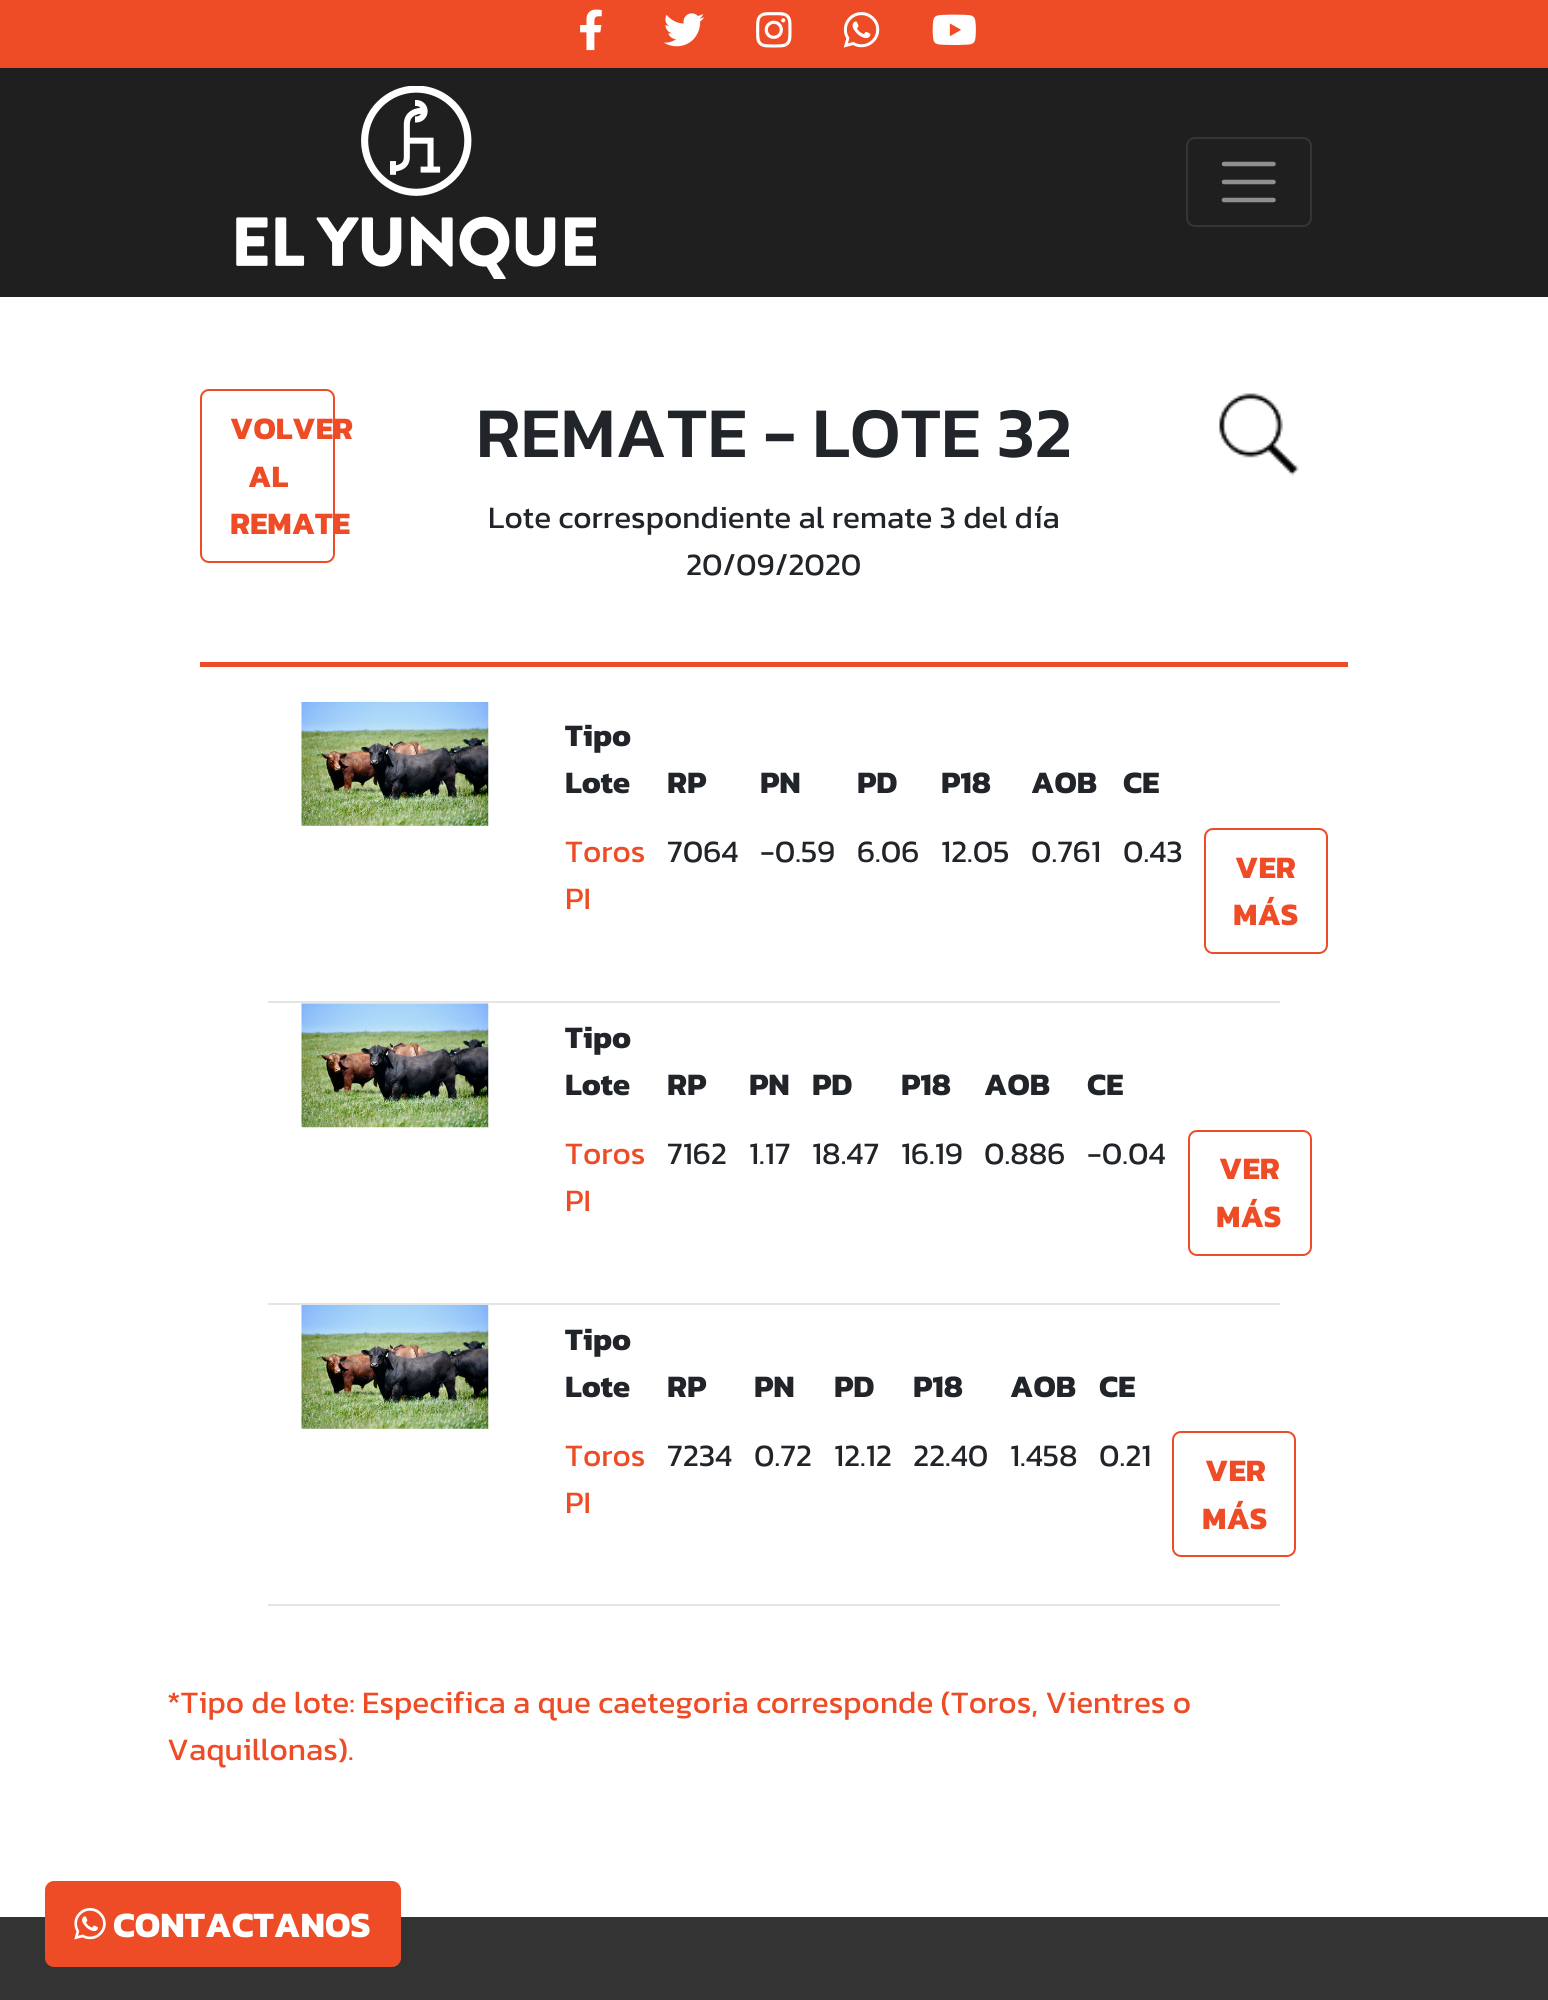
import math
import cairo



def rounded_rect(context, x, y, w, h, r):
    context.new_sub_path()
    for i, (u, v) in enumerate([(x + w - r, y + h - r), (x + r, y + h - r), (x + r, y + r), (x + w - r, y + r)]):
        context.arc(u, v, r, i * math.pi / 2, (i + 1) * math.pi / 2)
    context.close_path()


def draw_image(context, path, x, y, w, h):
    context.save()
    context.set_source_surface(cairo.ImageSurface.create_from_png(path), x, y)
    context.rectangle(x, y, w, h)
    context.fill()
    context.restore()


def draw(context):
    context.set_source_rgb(1, 1, 1)
    context.paint()
    context.set_source_rgb(238 / 255, 76 / 255, 38 / 255)
    context.rectangle(0, 0, 1548, 68)
    context.fill()
    draw_image(context, "images/1.png", 580, 9, 22, 42)
    draw_image(context, "images/2.png", 664, 13, 41, 34)
    draw_image(context, "images/3.png", 756, 12, 36, 36)
    draw_image(context, "images/4.png", 843, 12, 37, 36)
    draw_image(context, "images/5.png", 932, 14, 44, 31)
    context.set_source_rgb(31 / 255, 31 / 255, 31 / 255)
    context.rectangle(0, 68, 1548, 229)
    context.fill()
    draw_image(context, "images/6.png", 236, 86, 360, 193)
    rounded_rect(context, 1187, 138, 124, 88, 8)
    context.set_source_rgb(53 / 255, 53 / 255, 53 / 255)
    context.stroke()
    context.new_path()
    context.move_to(1224, 164)
    context.line_to(1273.5, 164)
    context.move_to(1224, 182)
    context.line_to(1273.5, 182)
    context.move_to(1224, 200)
    context.line_to(1273.5, 200)
    context.set_source_rgb(143 / 255, 143 / 255, 143 / 255)
    context.set_line_width(4.5)
    context.set_line_cap(cairo.LineCap.ROUND)
    context.stroke()
    rounded_rect(context, 201, 390, 133, 172, 8)
    context.set_source_rgb(238 / 255, 76 / 255, 38 / 255)
    context.set_line_width(2)
    context.set_line_cap(cairo.LineCap.BUTT)
    context.stroke()
    draw_image(context, "images/7.png", 1219, 393, 80, 83)
    context.rectangle(200, 662, 1148, 5)
    context.fill()
    context.set_source_rgb(228 / 255, 228 / 255, 228 / 255)
    context.rectangle(268, 1001, 1012, 2)
    context.fill()
    draw_image(context, "images/8.png", 301, 702, 188, 124)
    rounded_rect(context, 1205, 829, 122, 124, 8)
    context.set_source_rgb(238 / 255, 76 / 255, 38 / 255)
    context.stroke()
    context.set_source_rgb(228 / 255, 228 / 255, 228 / 255)
    context.rectangle(268, 1303, 1012, 2)
    context.fill()
    draw_image(context, "images/9.png", 301, 1003, 188, 125)
    rounded_rect(context, 1189, 1131, 122, 124, 8)
    context.set_source_rgb(238 / 255, 76 / 255, 38 / 255)
    context.stroke()
    context.set_source_rgb(228 / 255, 228 / 255, 228 / 255)
    context.rectangle(268, 1604, 1012, 2)
    context.fill()
    draw_image(context, "images/8.png", 301, 1305, 188, 124)
    rounded_rect(context, 1173, 1432, 122, 124, 8)
    context.set_source_rgb(238 / 255, 76 / 255, 38 / 255)
    context.stroke()
    context.set_source_rgb(51 / 255, 51 / 255, 51 / 255)
    context.rectangle(0, 1917, 1548, 83)
    context.fill()
    context.set_source_rgb(238 / 255, 76 / 255, 38 / 255)
    rounded_rect(context, 46, 1882, 354, 84, 8)
    context.fill_preserve()
    context.stroke()
    draw_image(context, "images/10.png", 74, 1908, 32, 32)
    context.select_font_face("Kanit", cairo.FontSlant.NORMAL, cairo.FontWeight.BOLD)
    context.set_font_size(31.5)
    context.move_to(230, 439)
    context.show_text("VOLVER")
    context.move_to(248, 487)
    context.show_text("AL")
    context.move_to(230, 534)
    context.show_text("REMATE")
    context.select_font_face("Kanit Medium")
    context.set_font_size(72)
    context.set_source_rgb(33 / 255, 37 / 255, 41 / 255)
    context.move_to(476, 457)
    context.show_text("REMATE - LOTE 32")
    context.select_font_face("Kanit")
    context.set_font_size(31.5)
    context.move_to(488, 528)
    context.show_text("Lote correspondiente al remate 3 del día")
    context.move_to(686, 575)
    context.show_text("20/09/2020")
    context.select_font_face("Kanit", cairo.FontSlant.NORMAL, cairo.FontWeight.BOLD)
    context.move_to(565, 746)
    context.show_text("Tipo")
    context.move_to(565, 793)
    context.show_text("Lote")
    context.move_to(667, 793)
    context.show_text("RP")
    context.move_to(760, 793)
    context.show_text("PN")
    context.move_to(857, 793)
    context.show_text("PD")
    context.move_to(941, 793)
    context.show_text("P18")
    context.move_to(1031, 793)
    context.show_text("AOB")
    context.move_to(1123, 793)
    context.show_text("CE")
    context.select_font_face("Kanit")
    context.set_source_rgb(238 / 255, 76 / 255, 38 / 255)
    context.move_to(565, 862)
    context.show_text("Toros")
    context.move_to(565, 909)
    context.show_text("PI")
    context.set_source_rgb(33 / 255, 37 / 255, 41 / 255)
    context.move_to(667, 862)
    context.show_text("7064")
    context.move_to(760, 862)
    context.show_text("-0.59")
    context.move_to(857, 862)
    context.show_text("6.06")
    context.move_to(941, 862)
    context.show_text("12.05")
    context.move_to(1031, 862)
    context.show_text("0.761")
    context.move_to(1123, 862)
    context.show_text("0.43")
    context.select_font_face("Kanit", cairo.FontSlant.NORMAL, cairo.FontWeight.BOLD)
    context.set_source_rgb(238 / 255, 76 / 255, 38 / 255)
    context.move_to(1235, 878)
    context.show_text("VER")
    context.move_to(1233, 925)
    context.show_text("MÁS")
    context.set_source_rgb(33 / 255, 37 / 255, 41 / 255)
    context.move_to(565, 1048)
    context.show_text("Tipo")
    context.move_to(565, 1095)
    context.show_text("Lote")
    context.move_to(667, 1095)
    context.show_text("RP")
    context.move_to(749, 1095)
    context.show_text("PN")
    context.move_to(812, 1095)
    context.show_text("PD")
    context.move_to(901, 1095)
    context.show_text("P18")
    context.move_to(984, 1095)
    context.show_text("AOB")
    context.move_to(1087, 1095)
    context.show_text("CE")
    context.select_font_face("Kanit")
    context.set_source_rgb(238 / 255, 76 / 255, 38 / 255)
    context.move_to(565, 1164)
    context.show_text("Toros")
    context.move_to(565, 1211)
    context.show_text("PI")
    context.set_source_rgb(33 / 255, 37 / 255, 41 / 255)
    context.move_to(667, 1164)
    context.show_text("7162")
    context.move_to(749, 1164)
    context.show_text("1.17")
    context.move_to(812, 1164)
    context.show_text("18.47")
    context.move_to(901, 1164)
    context.show_text("16.19")
    context.move_to(984, 1164)
    context.show_text("0.886")
    context.move_to(1087, 1164)
    context.show_text("-0.04")
    context.select_font_face("Kanit", cairo.FontSlant.NORMAL, cairo.FontWeight.BOLD)
    context.set_source_rgb(238 / 255, 76 / 255, 38 / 255)
    context.move_to(1219, 1179)
    context.show_text("VER")
    context.move_to(1216, 1227)
    context.show_text("MÁS")
    context.set_source_rgb(33 / 255, 37 / 255, 41 / 255)
    context.move_to(565, 1350)
    context.show_text("Tipo")
    context.move_to(565, 1397)
    context.show_text("Lote")
    context.move_to(667, 1397)
    context.show_text("RP")
    context.move_to(754, 1397)
    context.show_text("PN")
    context.move_to(834, 1397)
    context.show_text("PD")
    context.move_to(913, 1397)
    context.show_text("P18")
    context.move_to(1010, 1397)
    context.show_text("AOB")
    context.move_to(1099, 1397)
    context.show_text("CE")
    context.select_font_face("Kanit")
    context.set_source_rgb(238 / 255, 76 / 255, 38 / 255)
    context.move_to(565, 1466)
    context.show_text("Toros")
    context.move_to(565, 1513)
    context.show_text("PI")
    context.set_source_rgb(33 / 255, 37 / 255, 41 / 255)
    context.move_to(667, 1466)
    context.show_text("7234")
    context.move_to(754, 1466)
    context.show_text("0.72")
    context.move_to(834, 1466)
    context.show_text("12.12")
    context.move_to(913, 1466)
    context.show_text("22.40")
    context.move_to(1010, 1466)
    context.show_text("1.458")
    context.move_to(1099, 1466)
    context.show_text("0.21")
    context.select_font_face("Kanit", cairo.FontSlant.NORMAL, cairo.FontWeight.BOLD)
    context.set_source_rgb(238 / 255, 76 / 255, 38 / 255)
    context.move_to(1205, 1481)
    context.show_text("VER")
    context.move_to(1202, 1529)
    context.show_text("MÁS")
    context.select_font_face("Kanit")
    context.move_to(167, 1713)
    context.show_text("*Tipo de lote: Especifica a que caetegoria corresponde (Toros, Vientres o")
    context.move_to(167, 1760)
    context.show_text("Vaquillonas).")
    context.select_font_face("Kanit", cairo.FontSlant.NORMAL, cairo.FontWeight.BOLD)
    context.set_font_size(36)
    context.set_source_rgb(1, 1, 1)
    context.move_to(113, 1937)
    context.show_text("CONTACTANOS")


surface = cairo.ImageSurface(cairo.Format.RGB24, 1548, 2000)
context = cairo.Context(surface)
options = cairo.FontOptions()
options.set_hint_metrics(cairo.HintMetrics.OFF)
options.set_hint_style(cairo.HintStyle.NONE)
context.set_font_options(options)
context.set_miter_limit(4)
draw(context)
surface.write_to_png("out.png")
